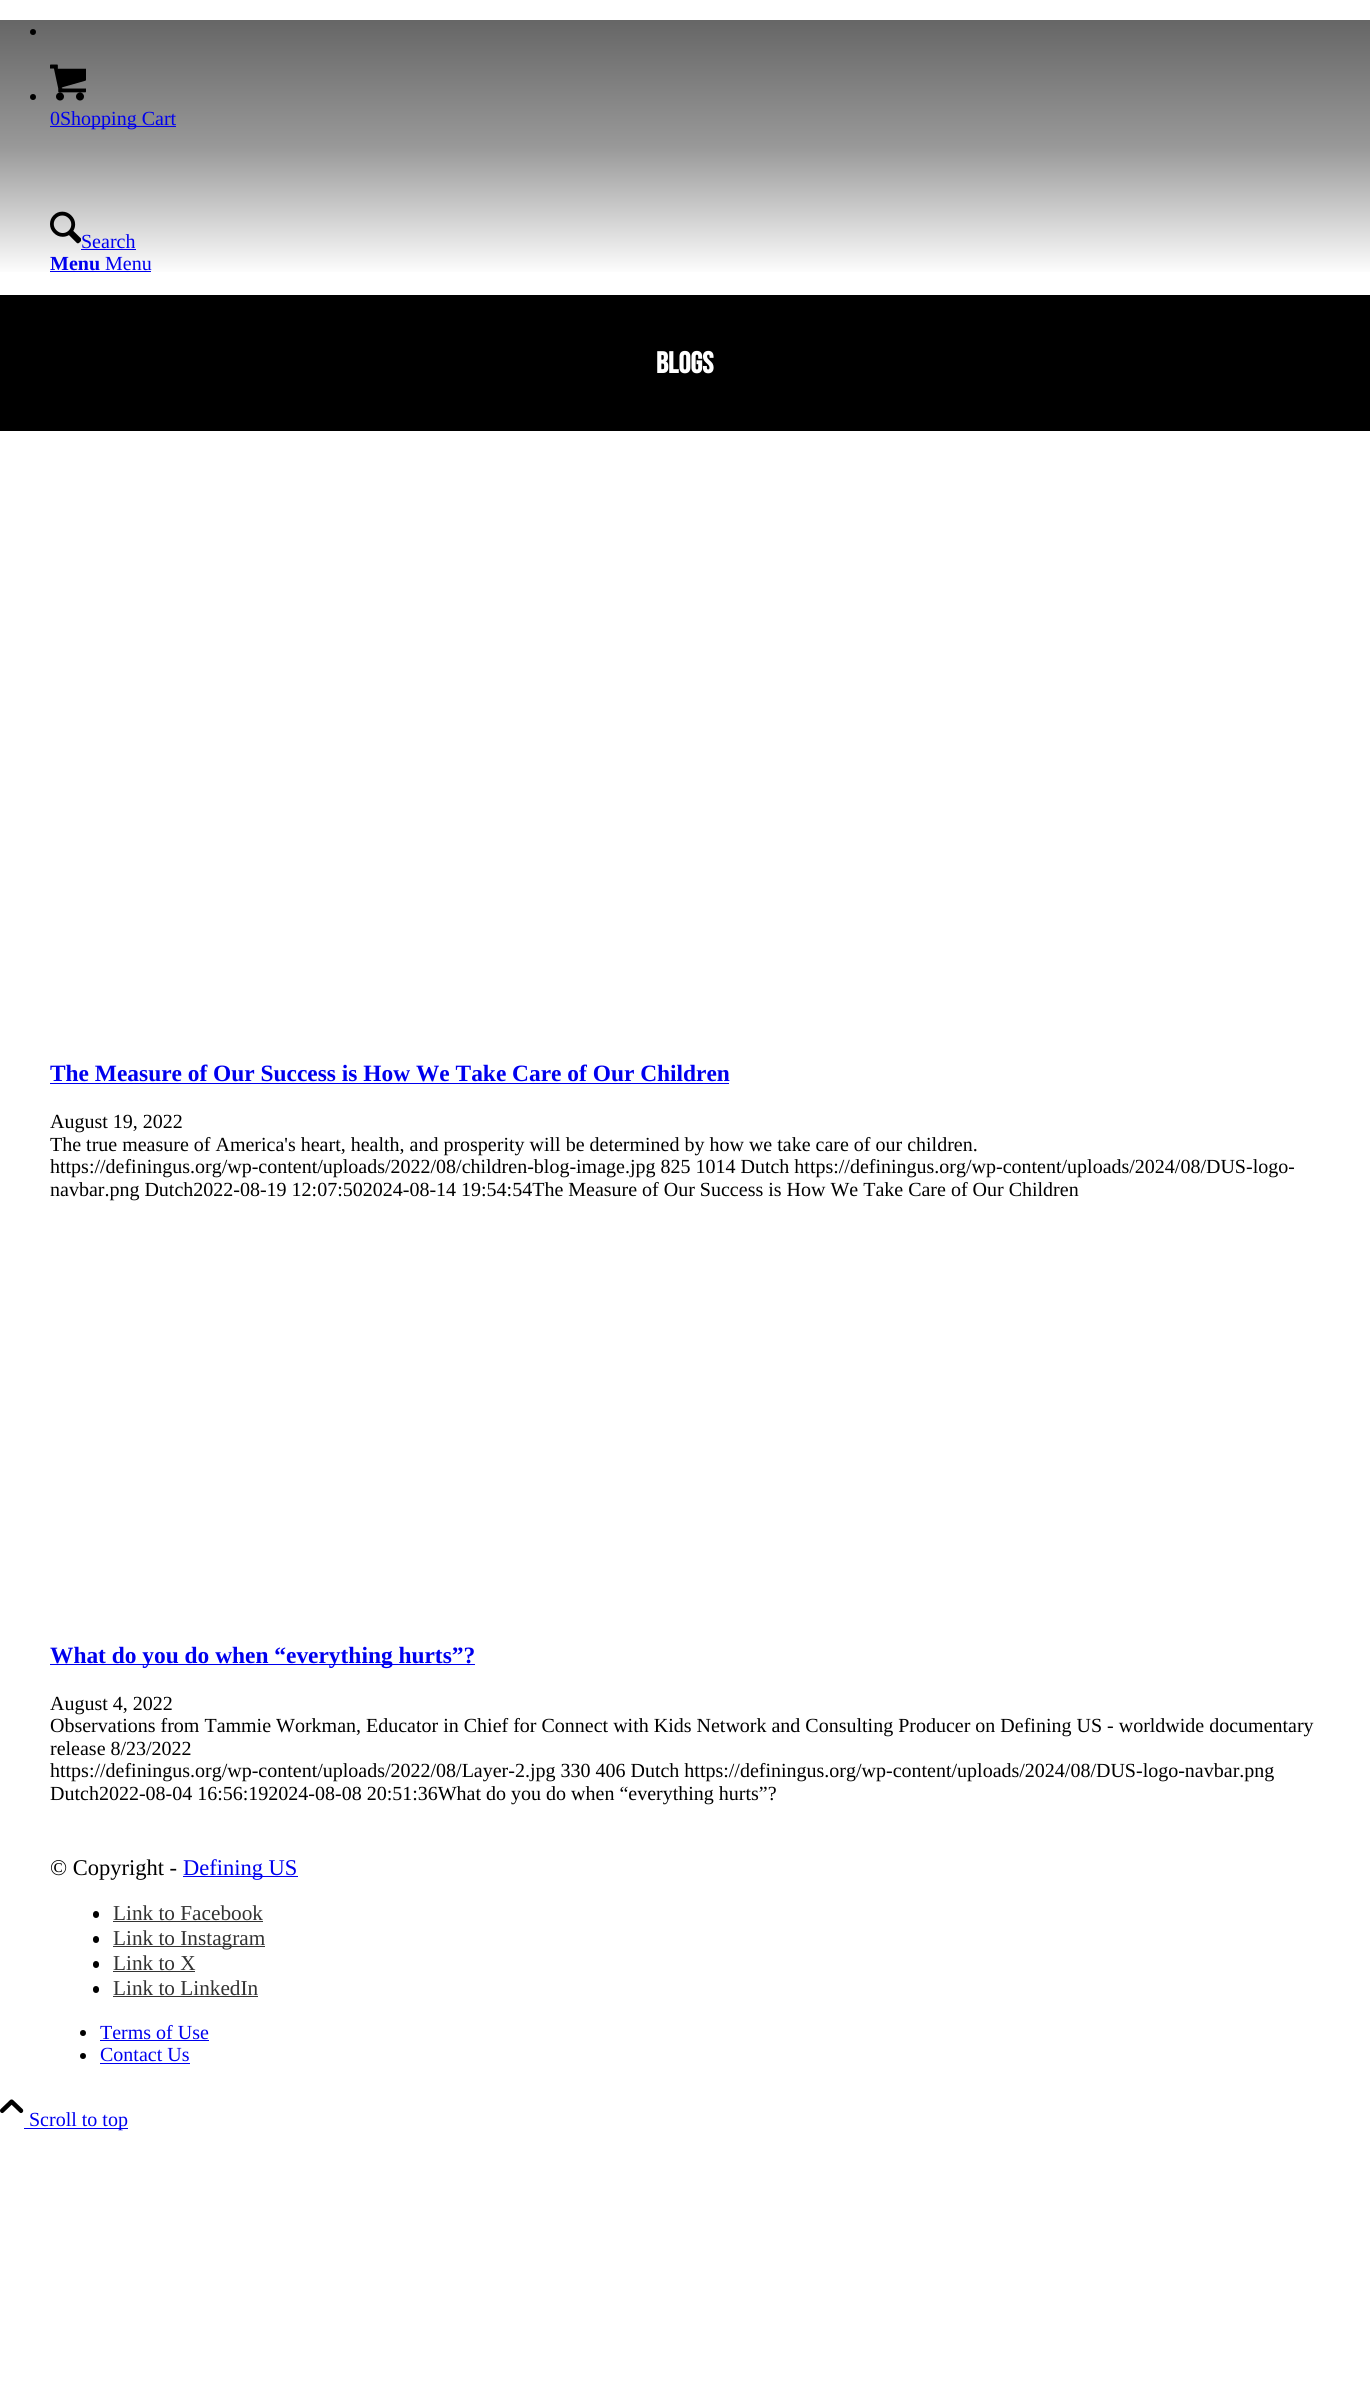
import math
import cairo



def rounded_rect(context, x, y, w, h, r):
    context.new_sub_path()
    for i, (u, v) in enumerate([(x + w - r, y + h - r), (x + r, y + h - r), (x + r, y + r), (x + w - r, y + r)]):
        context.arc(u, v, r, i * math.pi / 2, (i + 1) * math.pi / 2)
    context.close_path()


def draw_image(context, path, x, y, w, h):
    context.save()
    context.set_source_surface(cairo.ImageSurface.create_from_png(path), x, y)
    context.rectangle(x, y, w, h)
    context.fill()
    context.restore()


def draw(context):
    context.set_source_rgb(1, 1, 1)
    context.paint()
    gradient = cairo.LinearGradient(685, 20, 685, 275)
    gradient.add_color_stop_rgba(0, 102 / 255, 102 / 255, 102 / 255, 1)
    gradient.add_color_stop_rgba(0.5, 153 / 255, 153 / 255, 153 / 255, 1)
    gradient.add_color_stop_rgba(1, 1, 1, 1, 1)
    context.set_source(gradient)
    context.rectangle(0, 20, 1370, 252)
    context.fill()
    context.set_source_rgb(0, 0, 0)
    context.arc(33, 32, 3, 0, 2 * math.pi)
    context.fill()
    context.arc(33, 97, 3, 0, 2 * math.pi)
    context.fill()
    draw_image(context, "images/1.png", 50, 64, 36, 37)
    context.set_source_rgb(0, 0, 238 / 255)
    context.rectangle(50, 126, 126, 1)
    context.fill()
    draw_image(context, "images/2.png", 50, 211, 31, 33)
    context.rectangle(81, 249, 55, 1)
    context.fill()
    context.rectangle(50, 271, 101, 1)
    context.fill()
    context.set_source_rgb(0, 0, 0)
    context.rectangle(0, 295, 1370, 136)
    context.fill()
    context.set_source_rgb(0, 0, 238 / 255)
    context.rectangle(50, 1083, 679, 1)
    context.fill()
    context.rectangle(50, 1664, 425, 1)
    context.fill()
    context.rectangle(183, 1876, 115, 1)
    context.fill()
    context.set_source_rgb(0, 0, 0)
    rounded_rect(context, 93, 1911, 6, 7, 3)
    context.fill()
    context.set_source_rgb(51 / 255, 51 / 255, 51 / 255)
    context.rectangle(113, 1921, 150, 1)
    context.fill()
    context.set_source_rgb(0, 0, 0)
    rounded_rect(context, 93, 1936, 6, 7, 3)
    context.fill()
    context.set_source_rgb(51 / 255, 51 / 255, 51 / 255)
    context.rectangle(113, 1946, 152, 1)
    context.fill()
    context.set_source_rgb(0, 0, 0)
    rounded_rect(context, 93, 1961, 6, 7, 3)
    context.fill()
    context.set_source_rgb(51 / 255, 51 / 255, 51 / 255)
    context.rectangle(113, 1971, 82, 1)
    context.fill()
    context.set_source_rgb(0, 0, 0)
    rounded_rect(context, 93, 1986, 6, 7, 3)
    context.fill()
    context.set_source_rgb(51 / 255, 51 / 255, 51 / 255)
    context.rectangle(113, 1996, 145, 1)
    context.fill()
    context.set_source_rgb(0, 0, 0)
    context.arc(83, 2033, 3, 0, 2 * math.pi)
    context.fill()
    context.set_source_rgb(0, 0, 238 / 255)
    context.rectangle(100, 2040, 109, 1)
    context.fill()
    context.set_source_rgb(0, 0, 0)
    context.arc(83, 2056, 3, 0, 2 * math.pi)
    context.fill()
    context.set_source_rgb(0, 0, 238 / 255)
    context.rectangle(100, 2063, 90, 1)
    context.fill()
    draw_image(context, "images/3.png", 0, 2099, 24, 15)
    context.rectangle(24, 2128, 104, 1)
    context.fill()
    context.select_font_face("Liberation Serif")
    context.set_font_size(20)
    context.move_to(50, 125)
    context.show_text("0Shopping Cart")
    context.move_to(81, 248)
    context.show_text("Search")
    context.select_font_face("Liberation Serif", cairo.FontSlant.NORMAL, cairo.FontWeight.BOLD)
    context.move_to(50, 270)
    context.show_text("Menu")
    context.select_font_face("Liberation Serif")
    context.move_to(105, 270)
    context.show_text("Menu")
    context.select_font_face("Bebas Neue", cairo.FontSlant.NORMAL, cairo.FontWeight.BOLD)
    context.set_font_size(30)
    context.set_source_rgb(1, 1, 1)
    context.move_to(656, 373)
    context.show_text("Blogs")
    context.select_font_face("Liberation Serif", cairo.FontSlant.NORMAL, cairo.FontWeight.BOLD)
    context.set_font_size(23.4)
    context.set_source_rgb(0, 0, 238 / 255)
    context.move_to(50, 1081)
    context.show_text("The Measure of Our Success is How We Take Care of Our Children")
    context.select_font_face("Liberation Serif")
    context.set_font_size(20)
    context.set_source_rgb(0, 0, 0)
    context.move_to(50, 1128)
    context.show_text("August 19, 2022")
    context.move_to(50, 1151)
    context.show_text("The true measure of America's heart, health, and prosperity will be determined by how we take care of our children.")
    context.move_to(50, 1173)
    context.show_text("https://definingus.org/wp-content/uploads/2022/08/children-blog-image.jpg 825 1014 Dutch https://definingus.org/wp-content/uploads/2024/08/DUS-logo-")
    context.move_to(50, 1196)
    context.show_text("navbar.png Dutch2022-08-19 12:07:502024-08-14 19:54:54The Measure of Our Success is How We Take Care of Our Children")
    context.select_font_face("Liberation Serif", cairo.FontSlant.NORMAL, cairo.FontWeight.BOLD)
    context.set_font_size(23.4)
    context.set_source_rgb(0, 0, 238 / 255)
    context.move_to(50, 1663)
    context.show_text("What do you do when “everything hurts”?")
    context.select_font_face("Liberation Serif")
    context.set_font_size(20)
    context.set_source_rgb(0, 0, 0)
    context.move_to(50, 1710)
    context.show_text("August 4, 2022")
    context.move_to(50, 1732)
    context.show_text("Observations from Tammie Workman, Educator in Chief for Connect with Kids Network and Consulting Producer on Defining US - worldwide documentary")
    context.move_to(50, 1755)
    context.show_text("release 8/23/2022")
    context.move_to(50, 1777)
    context.show_text("https://definingus.org/wp-content/uploads/2022/08/Layer-2.jpg 330 406 Dutch https://definingus.org/wp-content/uploads/2024/08/DUS-logo-navbar.png")
    context.move_to(50, 1800)
    context.show_text("Dutch2022-08-04 16:56:192024-08-08 20:51:36What do you do when “everything hurts”?")
    context.set_font_size(22.5)
    context.move_to(50, 1875)
    context.show_text("© Copyright -")
    context.set_source_rgb(0, 0, 238 / 255)
    context.move_to(183, 1875)
    context.show_text("Defining US")
    context.set_font_size(21.25)
    context.set_source_rgb(51 / 255, 51 / 255, 51 / 255)
    context.move_to(113, 1920)
    context.show_text("Link to Facebook")
    context.move_to(113, 1945)
    context.show_text("Link to Instagram")
    context.move_to(113, 1970)
    context.show_text("Link to X")
    context.move_to(113, 1995)
    context.show_text("Link to LinkedIn")
    context.set_font_size(20)
    context.set_source_rgb(0, 0, 238 / 255)
    context.move_to(100, 2039)
    context.show_text("Terms of Use")
    context.move_to(100, 2061)
    context.show_text("Contact Us")
    context.move_to(29, 2126)
    context.show_text("Scroll to top")


surface = cairo.ImageSurface(cairo.Format.RGB24, 1370, 2388)
context = cairo.Context(surface)
options = cairo.FontOptions()
options.set_hint_metrics(cairo.HintMetrics.OFF)
options.set_hint_style(cairo.HintStyle.NONE)
context.set_font_options(options)
context.set_miter_limit(4)
draw(context)
surface.write_to_png("out.png")
